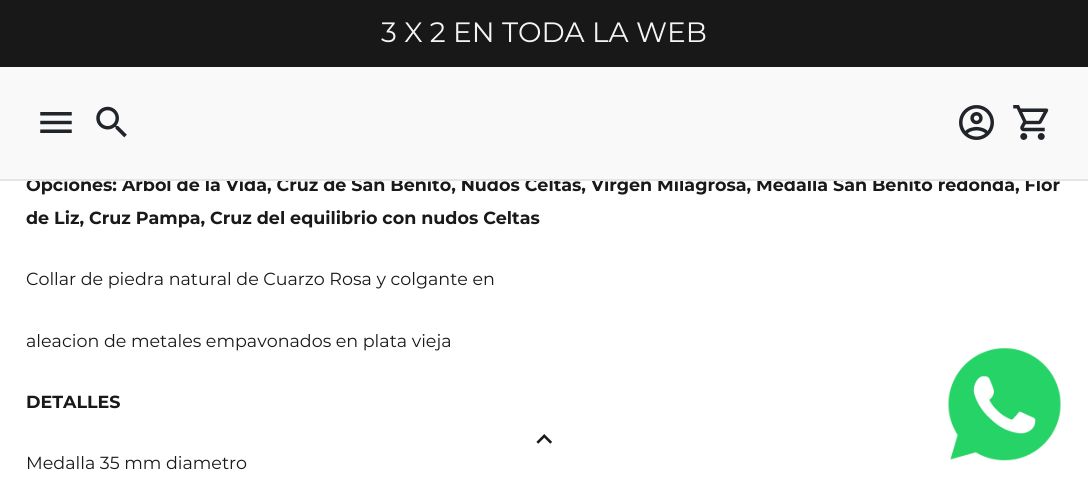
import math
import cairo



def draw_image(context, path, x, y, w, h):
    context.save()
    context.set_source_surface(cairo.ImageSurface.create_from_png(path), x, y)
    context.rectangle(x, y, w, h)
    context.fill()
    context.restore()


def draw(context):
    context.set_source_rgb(1, 1, 1)
    context.paint()
    context.set_source_rgb(24 / 255, 24 / 255, 24 / 255)
    context.rectangle(0, 0, 1088, 67)
    context.fill()
    draw_image(context, "images/5.png", 536, 434, 16, 10)
    draw_image(context, "images/6.png", 948, 348, 113, 113)
    context.select_font_face("Montserrat")
    context.set_font_size(28)
    context.set_source_rgb(244 / 255, 244 / 255, 244 / 255)
    context.move_to(381, 42)
    context.show_text("3 X 2 EN TODA LA WEB")
    context.select_font_face("Montserrat", cairo.FontSlant.NORMAL, cairo.FontWeight.BOLD)
    context.set_font_size(17.5)
    context.set_source_rgb(26 / 255, 24 / 255, 24 / 255)
    context.move_to(26, 191)
    context.show_text("Opciones: Arbol de la Vida, Cruz de San Benito, Nudos Celtas, Virgen Milagrosa, Medalla San Benito redonda, Flor")
    context.set_source_rgb(249 / 255, 249 / 255, 249 / 255)
    context.rectangle(0, 67, 1088, 112)
    context.fill()
    draw_image(context, "images/4.png", 1013, 105, 36, 35)
    draw_image(context, "images/3.png", 959, 105, 35, 35)
    draw_image(context, "images/2.png", 96, 106, 31, 32)
    draw_image(context, "images/1.png", 40, 112, 32, 21)
    context.set_source_rgb(229 / 255, 229 / 255, 229 / 255)
    context.rectangle(0, 179, 1088, 2)
    context.fill()
    context.set_source_rgb(26 / 255, 24 / 255, 24 / 255)
    context.move_to(26, 224)
    context.show_text("de Liz, Cruz Pampa, Cruz del equilibrio con nudos Celtas")
    context.select_font_face("Montserrat")
    context.move_to(26, 285)
    context.show_text("Collar de piedra natural de Cuarzo Rosa y colgante en")
    context.move_to(26, 347)
    context.show_text("aleacion de metales empavonados en plata vieja")
    context.select_font_face("Montserrat", cairo.FontSlant.NORMAL, cairo.FontWeight.BOLD)
    context.move_to(26, 408)
    context.show_text("DETALLES")
    context.select_font_face("Montserrat")
    context.move_to(26, 469)
    context.show_text("Medalla 35 mm diametro")


surface = cairo.ImageSurface(cairo.Format.RGB24, 1088, 499)
context = cairo.Context(surface)
options = cairo.FontOptions()
options.set_hint_metrics(cairo.HintMetrics.OFF)
options.set_hint_style(cairo.HintStyle.NONE)
context.set_font_options(options)
context.set_miter_limit(4)
draw(context)
surface.write_to_png("out.png")
